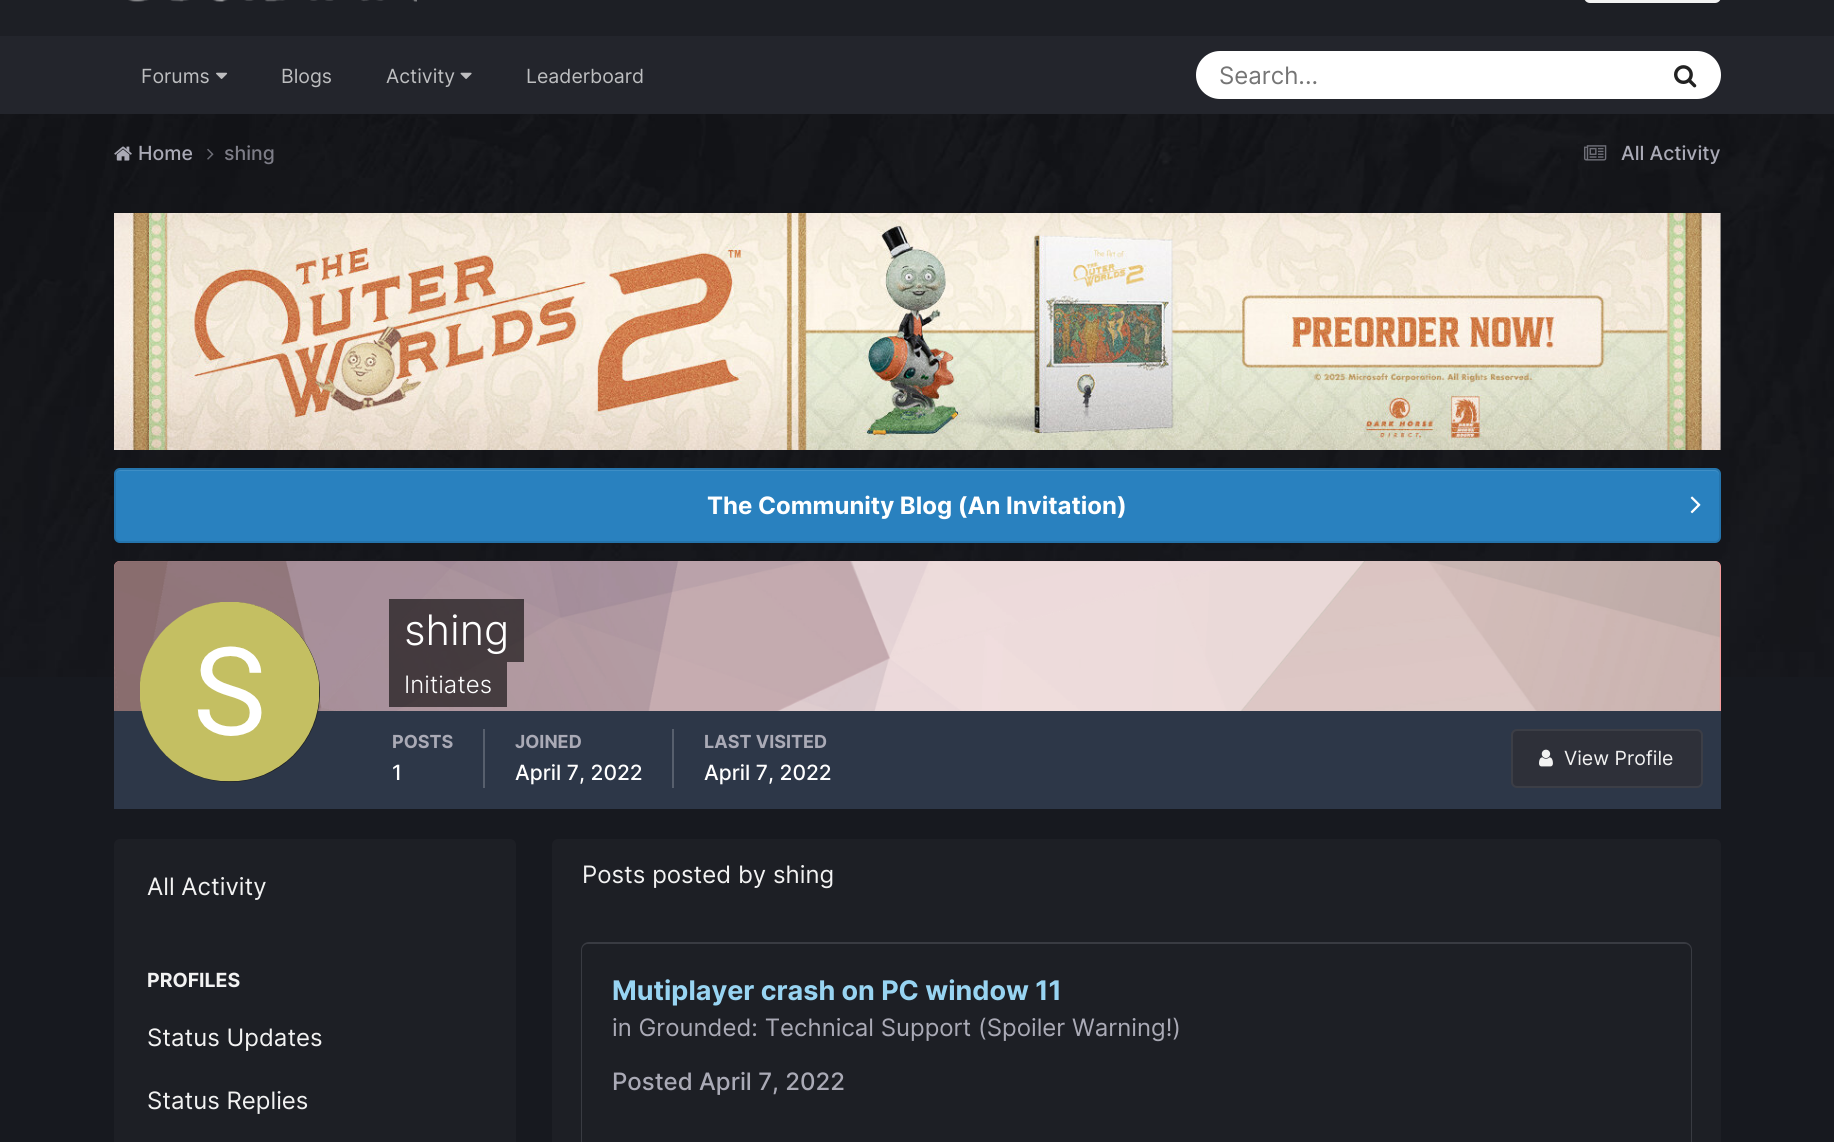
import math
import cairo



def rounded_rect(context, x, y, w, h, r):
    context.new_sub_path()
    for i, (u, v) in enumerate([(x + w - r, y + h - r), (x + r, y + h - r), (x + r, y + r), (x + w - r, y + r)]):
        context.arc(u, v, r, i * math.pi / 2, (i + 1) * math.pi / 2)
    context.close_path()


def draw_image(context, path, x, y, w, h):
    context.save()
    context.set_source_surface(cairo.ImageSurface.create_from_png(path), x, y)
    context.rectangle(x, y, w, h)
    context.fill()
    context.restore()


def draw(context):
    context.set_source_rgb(23 / 255, 25 / 255, 31 / 255)
    context.paint()
    context.set_source_rgb(29 / 255, 31 / 255, 37 / 255)
    context.rectangle(0, 0, 1834, 36)
    context.fill()
    draw_image(context, "images/1.png", 128, 0, 289, 2)
    context.set_source_rgb(242 / 255, 242 / 255, 242 / 255)
    rounded_rect(context, 1584, -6, 137, 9, 6)
    context.fill()
    context.set_source_rgb(35 / 255, 37 / 255, 44 / 255)
    context.rectangle(0, 36, 1834, 78)
    context.fill()
    draw_image(context, "images/2.png", 216, 72, 12, 7)
    draw_image(context, "images/3.png", 460, 72, 12, 7)
    context.set_source_rgb(1, 1, 1)
    rounded_rect(context, 1196, 51, 525, 48, 24)
    context.fill()
    draw_image(context, "images/4.png", 1674, 65, 23, 23)
    draw_image(context, "images/5.png", 0, 114, 1834, 563)
    draw_image(context, "images/6.png", 114, 146, 18, 15)
    draw_image(context, "images/7.png", 207, 148, 7, 12)
    draw_image(context, "images/8.png", 1584, 145, 23, 16)
    context.set_source_rgb(46 / 255, 48 / 255, 57 / 255)
    context.rectangle(1720, 213, 1, 237)
    context.fill()
    draw_image(context, "images/9.png", 114, 213, 1607, 237)
    context.set_source_rgb(41 / 255, 129 / 255, 191 / 255)
    rounded_rect(context, 114, 468, 1607, 75, 6)
    context.fill()
    context.set_source_rgb(62 / 255, 142 / 255, 197 / 255)
    context.new_path()
    context.move_to(120, 471)
    context.line_to(1714, 471)
    context.curve_to(1717, 471, 1719, 473, 1719, 476)
    context.line_to(1719, 475)
    context.curve_to(1719, 472, 1717, 470, 1714, 470)
    context.line_to(121, 470)
    context.curve_to(118, 470, 116, 472, 116, 475)
    context.line_to(116, 476)
    context.curve_to(116, 473, 118, 471, 120, 471)
    context.close_path()
    context.fill()
    rounded_rect(context, 115, 469, 1605, 73, 5)
    context.set_source_rgba(0, 0, 0, 0.1)
    context.stroke()
    draw_image(context, "images/10.png", 1690, 496, 11, 18)
    context.set_source_rgb(1, 153 / 255, 158 / 255)
    context.new_path()
    context.move_to(120, 561)
    context.line_to(1715, 561)
    context.curve_to(1718.5, 561, 1721, 563.5, 1721, 567)
    context.line_to(1721, 711)
    context.line_to(114, 711)
    context.line_to(114, 567)
    context.curve_to(114, 563.5, 116.5, 561, 120, 561)
    context.close_path()
    context.fill()
    draw_image(context, "images/11.png", 114, 561, 1607, 150)
    context.set_source_rgb(45 / 255, 55 / 255, 72 / 255)
    context.rectangle(114, 711, 1607, 98)
    context.fill()
    context.set_source_rgb(29 / 255, 31 / 255, 37 / 255)
    context.arc(230, 692, 90, 0, 2 * math.pi)
    context.fill()
    draw_image(context, "images/12.png", 140, 602, 180, 180)
    context.set_source_rgba(0, 0, 0, 0.6)
    context.rectangle(389, 599, 135, 63)
    context.fill()
    context.rectangle(389, 662, 118, 45)
    context.fill()
    context.set_source_rgb(87 / 255, 95 / 255, 109 / 255)
    context.rectangle(483, 729, 2, 59)
    context.fill()
    context.rectangle(672, 729, 2, 59)
    context.fill()
    context.set_source_rgb(46 / 255, 48 / 255, 57 / 255)
    rounded_rect(context, 1511, 729, 192, 59, 6)
    context.fill()
    rounded_rect(context, 1512, 730, 190, 57, 5)
    context.set_source_rgba(242 / 255, 242 / 255, 242 / 255, 0.07)
    context.stroke()
    draw_image(context, "images/13.png", 1539, 749, 14, 18)
    context.set_source_rgb(29 / 255, 31 / 255, 37 / 255)
    rounded_rect(context, 114, 839, 402, 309, 6)
    context.fill()
    rounded_rect(context, 552, 839, 1169, 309, 6)
    context.fill()
    rounded_rect(context, 582, 943, 1109, 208, 7)
    context.set_source_rgb(57 / 255, 59 / 255, 66 / 255)
    context.stroke()
    context.set_source_rgb(29 / 255, 31 / 255, 37 / 255)
    rounded_rect(context, 582, 944, 1109, 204, 6)
    context.fill()
    context.select_font_face("Inter")
    context.set_font_size(19.5)
    context.set_source_rgb(189 / 255, 190 / 255, 192 / 255)
    context.move_to(141, 83)
    context.show_text("Forums")
    context.move_to(281, 83)
    context.show_text("Blogs")
    context.move_to(386, 83)
    context.show_text("Activity")
    context.move_to(526, 83)
    context.show_text("Leaderboard")
    context.set_font_size(24)
    context.set_source_rgb(117 / 255, 117 / 255, 117 / 255)
    context.move_to(1219, 84)
    context.show_text("Search...")
    context.select_font_face("Inter Medium")
    context.set_font_size(19.5)
    context.set_source_rgb(170 / 255, 170 / 255, 182 / 255)
    context.move_to(138, 160)
    context.show_text("Home")
    context.set_source_rgb(125 / 255, 125 / 255, 135 / 255)
    context.move_to(224, 160)
    context.show_text("shing")
    context.set_source_rgb(170 / 255, 170 / 255, 182 / 255)
    context.move_to(1621, 160)
    context.show_text("All Activity")
    context.select_font_face("Inter", cairo.FontSlant.NORMAL, cairo.FontWeight.BOLD)
    context.set_font_size(24)
    context.set_source_rgb(1, 1, 1)
    context.move_to(707, 514)
    context.show_text("The Community Blog (An Invitation)")
    context.select_font_face("Inter Light")
    context.set_font_size(42)
    context.move_to(404, 645)
    context.show_text("shing")
    context.set_font_size(24)
    context.move_to(404, 693)
    context.show_text("Initiates")
    context.select_font_face("Inter", cairo.FontSlant.NORMAL, cairo.FontWeight.BOLD)
    context.set_font_size(18)
    context.set_source_rgb(170 / 255, 170 / 255, 182 / 255)
    context.move_to(392, 748)
    context.show_text("POSTS")
    context.select_font_face("Inter Medium")
    context.set_font_size(21)
    context.set_source_rgb(1, 1, 1)
    context.move_to(392, 780)
    context.show_text("1")
    context.select_font_face("Inter", cairo.FontSlant.NORMAL, cairo.FontWeight.BOLD)
    context.set_font_size(18)
    context.set_source_rgb(170 / 255, 170 / 255, 182 / 255)
    context.move_to(515, 748)
    context.show_text("JOINED")
    context.select_font_face("Inter Medium")
    context.set_font_size(21)
    context.set_source_rgb(1, 1, 1)
    context.move_to(515, 780)
    context.show_text("April 7, 2022")
    context.select_font_face("Inter", cairo.FontSlant.NORMAL, cairo.FontWeight.BOLD)
    context.set_font_size(18)
    context.set_source_rgb(170 / 255, 170 / 255, 182 / 255)
    context.move_to(704, 748)
    context.show_text("LAST VISITED")
    context.select_font_face("Inter Medium")
    context.set_font_size(21)
    context.set_source_rgb(1, 1, 1)
    context.move_to(704, 780)
    context.show_text("April 7, 2022")
    context.select_font_face("Inter")
    context.set_font_size(19.5)
    context.set_source_rgb(242 / 255, 242 / 255, 242 / 255)
    context.move_to(1564, 765)
    context.show_text("View Profile")
    context.set_font_size(24)
    context.move_to(147, 895)
    context.show_text("All Activity")
    context.select_font_face("Inter", cairo.FontSlant.NORMAL, cairo.FontWeight.BOLD)
    context.set_font_size(19.5)
    context.move_to(147, 987)
    context.show_text("PROFILES")
    context.select_font_face("Inter")
    context.set_font_size(24)
    context.move_to(147, 1046)
    context.show_text("Status Updates")
    context.move_to(147, 1109)
    context.show_text("Status Replies")
    context.move_to(582, 883)
    context.show_text("Posts posted by shing")
    context.select_font_face("Inter", cairo.FontSlant.NORMAL, cairo.FontWeight.BOLD)
    context.set_font_size(27)
    context.set_source_rgb(152 / 255, 212 / 255, 242 / 255)
    context.move_to(612, 1000)
    context.show_text("Mutiplayer crash on PC window 11")
    context.select_font_face("Inter")
    context.set_font_size(24)
    context.set_source_rgb(170 / 255, 170 / 255, 182 / 255)
    context.move_to(612, 1036)
    context.show_text("in Grounded: Technical Support (Spoiler Warning!)")
    context.select_font_face("Inter Medium")
    context.move_to(612, 1090)
    context.show_text("Posted April 7, 2022")


surface = cairo.ImageSurface(cairo.Format.RGB24, 1834, 1142)
context = cairo.Context(surface)
options = cairo.FontOptions()
options.set_hint_metrics(cairo.HintMetrics.OFF)
options.set_hint_style(cairo.HintStyle.NONE)
context.set_font_options(options)
context.set_miter_limit(4)
draw(context)
surface.write_to_png("out.png")
